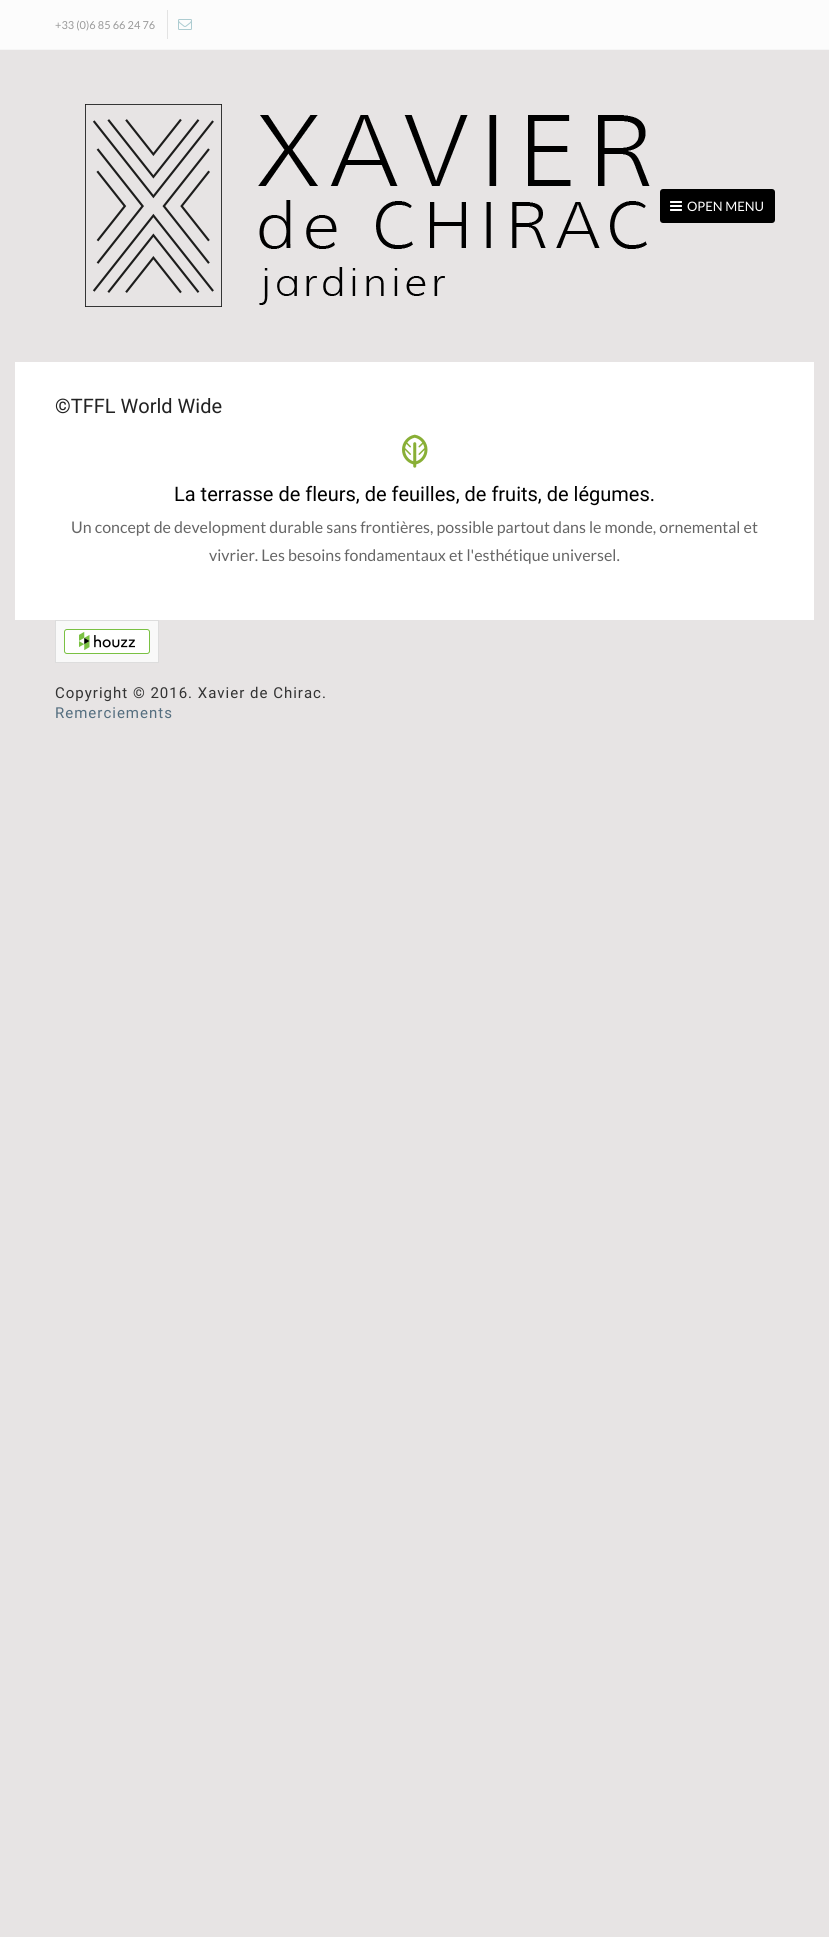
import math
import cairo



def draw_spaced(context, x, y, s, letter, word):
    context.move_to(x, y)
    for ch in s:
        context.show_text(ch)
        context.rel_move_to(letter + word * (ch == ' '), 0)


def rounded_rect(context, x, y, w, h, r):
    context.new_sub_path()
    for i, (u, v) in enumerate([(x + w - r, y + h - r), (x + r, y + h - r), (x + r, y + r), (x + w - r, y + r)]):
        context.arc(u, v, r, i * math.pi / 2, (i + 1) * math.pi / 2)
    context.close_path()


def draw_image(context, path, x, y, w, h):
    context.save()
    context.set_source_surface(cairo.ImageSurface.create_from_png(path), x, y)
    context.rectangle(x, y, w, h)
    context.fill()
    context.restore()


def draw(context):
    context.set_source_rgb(231 / 255, 228 / 255, 228 / 255)
    context.paint()
    context.set_source_rgb(252 / 255, 252 / 255, 252 / 255)
    context.rectangle(0, 0, 829, 49)
    context.fill()
    context.set_source_rgb(246 / 255, 246 / 255, 246 / 255)
    context.rectangle(0, 49, 829, 1)
    context.fill()
    context.set_source_rgb(227 / 255, 227 / 255, 227 / 255)
    context.rectangle(167, 10, 1, 29)
    context.fill()
    draw_image(context, "images/1.png", 178, 19, 14, 11)
    draw_image(context, "images/2.png", 85, 104, 565, 203)
    context.set_source_rgb(0, 0, 0)
    rounded_rect(context, 660, 189, 115, 34, 3)
    context.fill()
    draw_image(context, "images/3.png", 670, 201, 12, 10)
    context.set_source_rgb(1, 1, 1)
    context.rectangle(15, 362, 799, 258)
    context.fill()
    draw_image(context, "images/4.png", 402, 434, 26, 34)
    context.set_source_rgb(221 / 255, 221 / 255, 221 / 255)
    context.rectangle(55, 620, 104, 1)
    context.fill()
    context.rectangle(158, 620, 1, 43)
    context.fill()
    context.rectangle(55, 662, 104, 1)
    context.fill()
    context.rectangle(55, 620, 1, 43)
    context.fill()
    context.set_source_rgb(249 / 255, 249 / 255, 249 / 255)
    context.rectangle(56, 621, 102, 41)
    context.fill()
    draw_image(context, "images/5.png", 64, 629, 86, 25)
    context.select_font_face("Lato")
    context.set_font_size(11)
    context.set_source_rgb(153 / 255, 153 / 255, 153 / 255)
    context.move_to(55, 29)
    context.show_text("+33 (0)6 85 66 24 76")
    context.set_font_size(13)
    context.set_source_rgb(1, 1, 1)
    context.move_to(687, 211)
    context.show_text("OPEN MENU")
    context.select_font_face("Roboto")
    context.set_font_size(20)
    context.set_source_rgb(34 / 255, 34 / 255, 34 / 255)
    context.move_to(55, 413)
    context.show_text("©TFFL World Wide")
    context.set_source_rgb(0, 0, 0)
    context.move_to(174, 501)
    context.show_text("La terrasse de fleurs, de feuilles, de fruits, de légumes.")
    context.select_font_face("Lato")
    context.set_font_size(16)
    context.set_source_rgb(102 / 255, 102 / 255, 102 / 255)
    context.move_to(71, 533)
    context.show_text("Un concept de development durable sans frontières, possible partout dans le monde, ornemental et")
    context.move_to(209, 561)
    context.show_text("vivrier. Les besoins fondamentaux et l'esthétique universel.")
    context.select_font_face("Roboto")
    context.set_font_size(15)
    context.set_source_rgb(51 / 255, 51 / 255, 51 / 255)
    draw_spaced(context, 55, 698, "Copyright © 2016. Xavier de Chirac.", 1, 0)
    context.set_source_rgb(85 / 255, 110 / 255, 127 / 255)
    draw_spaced(context, 55, 718, "Remerciements", 1, 0)


surface = cairo.ImageSurface(cairo.Format.RGB24, 829, 1937)
context = cairo.Context(surface)
options = cairo.FontOptions()
options.set_hint_metrics(cairo.HintMetrics.OFF)
options.set_hint_style(cairo.HintStyle.NONE)
context.set_font_options(options)
context.set_miter_limit(4)
draw(context)
surface.write_to_png("out.png")
